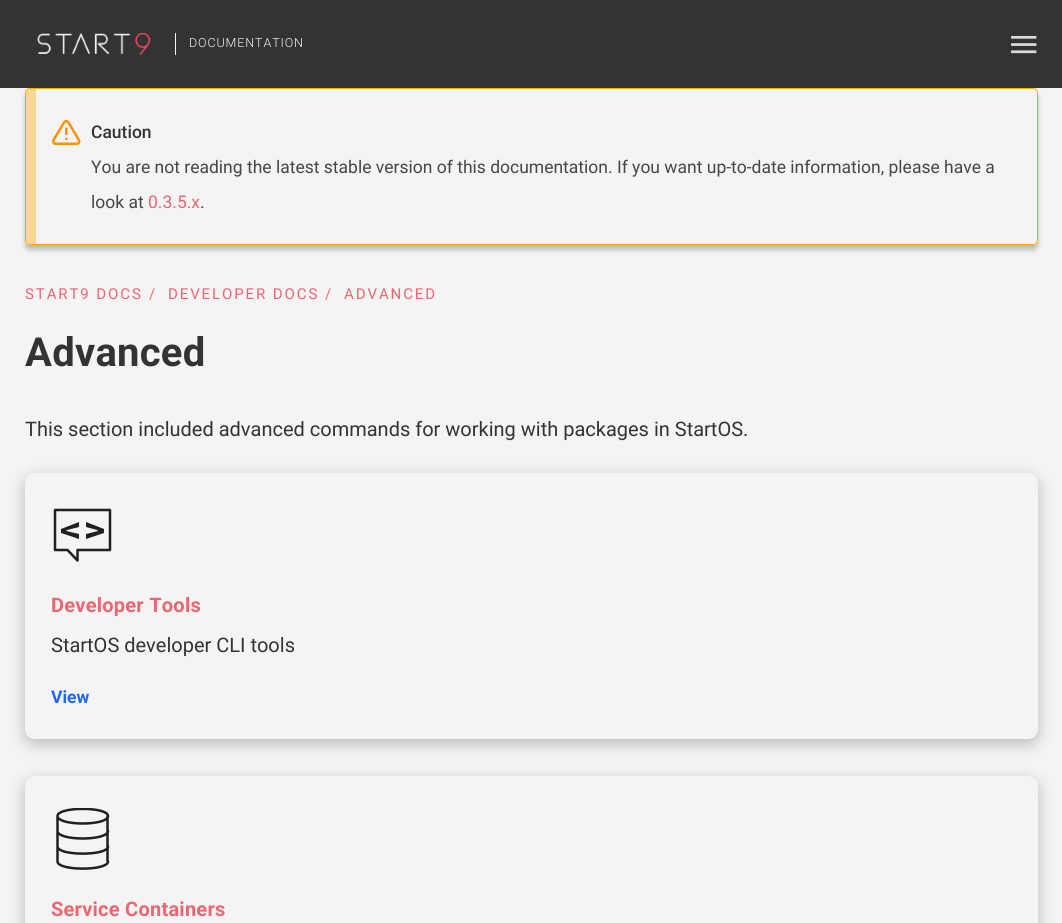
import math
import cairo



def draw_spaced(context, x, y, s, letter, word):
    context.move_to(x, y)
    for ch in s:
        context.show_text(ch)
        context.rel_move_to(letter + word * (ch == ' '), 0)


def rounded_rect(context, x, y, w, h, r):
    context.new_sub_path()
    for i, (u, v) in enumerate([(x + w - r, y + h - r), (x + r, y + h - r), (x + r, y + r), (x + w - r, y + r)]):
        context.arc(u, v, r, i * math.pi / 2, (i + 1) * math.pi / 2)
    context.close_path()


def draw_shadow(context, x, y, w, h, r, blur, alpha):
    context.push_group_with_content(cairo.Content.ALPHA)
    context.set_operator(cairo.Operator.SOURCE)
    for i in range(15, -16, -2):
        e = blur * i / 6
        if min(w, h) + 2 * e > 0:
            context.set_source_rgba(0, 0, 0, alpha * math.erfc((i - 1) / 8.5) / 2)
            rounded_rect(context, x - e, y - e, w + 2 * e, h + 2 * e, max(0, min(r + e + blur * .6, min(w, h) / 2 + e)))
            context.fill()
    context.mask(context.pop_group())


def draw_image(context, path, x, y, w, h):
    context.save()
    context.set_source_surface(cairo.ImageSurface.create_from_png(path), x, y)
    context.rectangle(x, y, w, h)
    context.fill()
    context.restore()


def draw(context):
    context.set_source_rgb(244 / 255, 244 / 255, 245 / 255)
    context.paint()
    context.set_source_rgb(248 / 255, 215 / 255, 147 / 255)
    context.new_path()
    context.move_to(30, 89)
    context.line_to(36, 89)
    context.line_to(36, 244)
    context.line_to(30, 244)
    context.curve_to(28, 244, 26, 242, 26, 240)
    context.line_to(26, 93)
    context.curve_to(26, 91, 28, 89, 30, 89)
    context.close_path()
    context.fill()
    context.save()
    context.set_fill_rule(cairo.FillRule.EVEN_ODD)
    context.new_path()
    context.move_to(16, 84)
    context.line_to(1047, 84)
    context.line_to(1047, 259)
    context.line_to(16, 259)
    context.close_path()
    context.move_to(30, 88)
    context.line_to(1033, 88)
    context.curve_to(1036, 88, 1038, 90, 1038, 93)
    context.line_to(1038, 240)
    context.curve_to(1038, 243, 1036, 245, 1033, 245)
    context.line_to(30, 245)
    context.curve_to(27, 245, 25, 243, 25, 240)
    context.line_to(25, 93)
    context.curve_to(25, 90, 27, 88, 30, 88)
    context.close_path()
    context.clip()
    context.set_source_rgb(130 / 255, 130 / 255, 130 / 255)
    draw_shadow(context, 25, 93, 1013, 157, 5, 2.5, 0.5)
    context.restore()
    context.set_source_rgb(51 / 255, 51 / 255, 51 / 255)
    context.rectangle(0, 0, 1062, 88)
    context.fill()
    draw_image(context, "images/1.png", 37, 32, 114, 24)
    context.set_source_rgb(244 / 255, 244 / 255, 245 / 255)
    context.rectangle(175, 33, 1, 22)
    context.fill()
    draw_image(context, "images/2.png", 1011, 35, 26, 19)
    rounded_rect(context, 25.5, 88.5, 1012, 156, 4.5)
    context.set_source_rgb(1, 171 / 255, 0)
    context.set_line_width(1)
    context.stroke()
    draw_image(context, "images/3.png", 52, 120, 29, 25)
    context.set_source_rgb(130 / 255, 130 / 255, 130 / 255)
    draw_shadow(context, 25, 478, 1013, 266, 10, 8, 0.5)
    context.set_source_rgb(244 / 255, 244 / 255, 245 / 255)
    rounded_rect(context, 25, 473, 1013, 266, 10)
    context.fill()
    context.set_source_rgb(32 / 255, 32 / 255, 32 / 255)
    context.new_path()
    context.move_to(67, 530)
    context.line_to(66, 531)
    context.line_to(79, 534)
    context.line_to(79, 539)
    context.line_to(61, 533)
    context.line_to(61, 529)
    context.line_to(79, 522)
    context.line_to(79, 527)
    context.close_path()
    context.move_to(86, 527)
    context.line_to(86, 522)
    context.line_to(104, 529)
    context.line_to(104, 533)
    context.line_to(86, 539)
    context.line_to(86, 534)
    context.line_to(98, 531)
    context.line_to(97, 530)
    context.close_path()
    context.fill()
    context.new_path()
    context.move_to(55, 510)
    context.line_to(110, 510)
    context.line_to(110, 550)
    context.line_to(77.5, 550)
    context.line_to(77.5, 560.5)
    context.line_to(67.5, 550)
    context.line_to(55, 550)
    context.close_path()
    context.set_line_width(2.5)
    context.set_line_cap(cairo.LineCap.ROUND)
    context.set_line_join(cairo.LineJoin.ROUND)
    context.stroke()
    context.set_source_rgb(130 / 255, 130 / 255, 130 / 255)
    draw_shadow(context, 25, 781, 1013, 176, 10, 8, 0.5)
    context.set_source_rgb(244 / 255, 244 / 255, 245 / 255)
    rounded_rect(context, 25, 776, 1013, 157, 10)
    context.fill()
    context.save()
    context.rectangle(51, 808, 63, 62)
    context.clip()
    context.new_path()
    context.move_to(108, 816)
    context.curve_to(108, 826, 57.5, 826, 57.5, 816)
    context.curve_to(57.5, 806.5, 108, 806.5, 108, 816)
    context.close_path()
    context.move_to(108, 831)
    context.curve_to(108, 841, 57.5, 841, 57.5, 831)
    context.move_to(108, 846.5)
    context.curve_to(108, 856, 57.5, 856, 57.5, 846.5)
    context.move_to(108, 861.5)
    context.curve_to(108, 871, 57.5, 871, 57.5, 861.5)
    context.move_to(57.5, 861)
    context.line_to(57.5, 816)
    context.move_to(107.5, 861)
    context.line_to(107.5, 816)
    context.set_source_rgb(32 / 255, 32 / 255, 32 / 255)
    context.stroke()
    context.restore()
    context.select_font_face("Roboto Light")
    context.set_font_size(12.5)
    draw_spaced(context, 189, 47, "DOCUMENTATION", 0.9, 0)
    context.select_font_face("Roboto Medium")
    context.set_font_size(17.5)
    context.set_source_rgb(51 / 255, 51 / 255, 51 / 255)
    context.move_to(91, 138)
    context.show_text("Caution")
    context.select_font_face("Roboto")
    context.set_source_rgb(70 / 255, 70 / 255, 70 / 255)
    context.move_to(91, 173)
    context.show_text("You are not reading the latest stable version of this documentation. If you want up-to-date information, please have a")
    context.move_to(91, 208)
    context.show_text("look at")
    context.set_source_rgb(238 / 255, 101 / 255, 112 / 255)
    context.move_to(148, 208)
    context.show_text("0.3.5.x")
    context.set_source_rgb(70 / 255, 70 / 255, 70 / 255)
    context.move_to(200, 208)
    context.show_text(".")
    context.set_font_size(15)
    context.set_source_rgb(238 / 255, 101 / 255, 112 / 255)
    draw_spaced(context, 25, 299, "START9 DOCS", 1.9, 0)
    draw_spaced(context, 149, 299, "/", 1.9, 0)
    draw_spaced(context, 168, 299, "DEVELOPER DOCS", 1.9, 0)
    draw_spaced(context, 325, 299, "/", 1.9, 0)
    draw_spaced(context, 344, 299, "ADVANCED", 1.9, 0)
    context.select_font_face("Roboto", cairo.FontSlant.NORMAL, cairo.FontWeight.BOLD)
    context.set_font_size(40)
    context.set_source_rgb(51 / 255, 51 / 255, 51 / 255)
    draw_spaced(context, 25, 366, "Advanced", 0.25, 0)
    context.select_font_face("Roboto")
    context.set_font_size(20)
    context.move_to(25, 436)
    context.show_text("This section included advanced commands for working with packages in StartOS.")
    context.select_font_face("Roboto", cairo.FontSlant.NORMAL, cairo.FontWeight.BOLD)
    context.set_source_rgb(238 / 255, 101 / 255, 112 / 255)
    draw_spaced(context, 51, 612, "Developer Tools", 0.25, 0)
    context.select_font_face("Roboto")
    context.set_source_rgb(51 / 255, 51 / 255, 51 / 255)
    context.move_to(51, 652)
    context.show_text("StartOS developer CLI tools")
    context.select_font_face("Roboto", cairo.FontSlant.NORMAL, cairo.FontWeight.BOLD)
    context.set_font_size(17.5)
    context.set_source_rgb(28 / 255, 103 / 255, 249 / 255)
    context.move_to(51, 703)
    context.show_text("View")
    context.set_font_size(20)
    context.set_source_rgb(238 / 255, 101 / 255, 112 / 255)
    draw_spaced(context, 51, 916, "Service Containers", 0.25, 0)


surface = cairo.ImageSurface(cairo.Format.RGB24, 1062, 923)
context = cairo.Context(surface)
options = cairo.FontOptions()
options.set_hint_metrics(cairo.HintMetrics.OFF)
options.set_hint_style(cairo.HintStyle.NONE)
context.set_font_options(options)
context.set_miter_limit(4)
draw(context)
surface.write_to_png("out.png")
